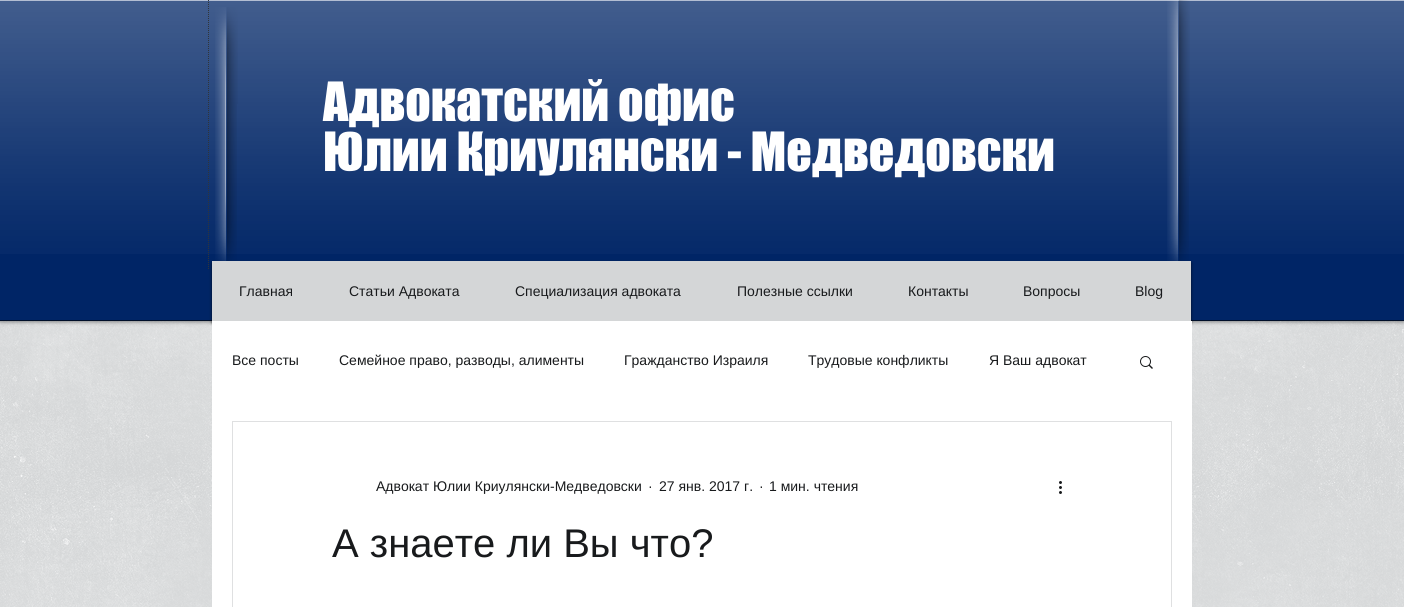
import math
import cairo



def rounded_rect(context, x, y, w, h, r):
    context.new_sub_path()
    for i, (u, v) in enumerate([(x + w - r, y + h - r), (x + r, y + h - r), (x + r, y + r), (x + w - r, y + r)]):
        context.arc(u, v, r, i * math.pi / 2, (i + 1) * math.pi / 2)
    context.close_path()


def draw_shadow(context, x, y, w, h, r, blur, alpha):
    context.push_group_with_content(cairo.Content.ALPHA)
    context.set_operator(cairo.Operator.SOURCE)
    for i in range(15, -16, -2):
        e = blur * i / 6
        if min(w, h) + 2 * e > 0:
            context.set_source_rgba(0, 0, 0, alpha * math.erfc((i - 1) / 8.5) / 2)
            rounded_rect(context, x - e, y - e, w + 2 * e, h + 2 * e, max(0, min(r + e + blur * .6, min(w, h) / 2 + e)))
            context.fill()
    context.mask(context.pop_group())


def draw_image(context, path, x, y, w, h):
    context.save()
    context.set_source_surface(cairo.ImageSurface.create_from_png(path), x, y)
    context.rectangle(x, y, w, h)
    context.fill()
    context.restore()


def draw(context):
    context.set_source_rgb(212 / 255, 214 / 255, 215 / 255)
    context.paint()
    draw_image(context, "images/10.png", 0, 321, 1404, 286)
    context.set_source_rgb(0, 0, 0)
    draw_shadow(context, 0, 0, 1404, 321, 0, 2.5, 0.6)
    context.set_source_rgb(0, 37 / 255, 102 / 255)
    context.rectangle(0, 1, 1404, 319)
    context.fill()
    draw_image(context, "images/1.png", 0, 1, 1404, 253)
    context.set_source_rgb(0, 15 / 255, 41 / 255)
    context.rectangle(0, 320, 1404, 1)
    context.fill()
    context.set_source_rgb(179 / 255, 190 / 255, 210 / 255)
    context.rectangle(0, 0, 1404, 1)
    context.fill()
    context.new_path()
    context.move_to(208.5, -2)
    context.line_to(208.5, 269)
    context.set_source_rgb(49 / 255, 53 / 255, 56 / 255)
    context.set_line_width(1)
    context.set_dash([1, 1])
    context.stroke()
    draw_image(context, "images/2.png", 215, 7, 23, 97)
    draw_image(context, "images/3.png", 215, 104, 22, 70)
    draw_image(context, "images/4.png", 215, 174, 22, 87)
    draw_image(context, "images/5.png", 1167, 0, 23, 78)
    draw_image(context, "images/6.png", 1167, 78, 23, 98)
    draw_image(context, "images/7.png", 1167, 176, 22, 85)
    context.set_source_rgb(0, 0, 0)
    draw_shadow(context, 212, 263, 979, 60, 0, 1.5, 0.7)
    context.set_source_rgb(212 / 255, 214 / 255, 215 / 255)
    context.rectangle(212, 261, 979, 60)
    context.fill()
    context.set_source_rgb(1, 1, 1)
    context.rectangle(212, 321, 980, 286)
    context.fill()
    draw_image(context, "images/8.png", 1140, 356, 13, 13)
    context.rectangle(232.5, 421.5, 939, 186)
    context.set_source_rgb(223 / 255, 224 / 255, 225 / 255)
    context.set_dash([])
    context.stroke()
    draw_image(context, "images/9.png", 1059, 481, 3, 13)
    context.select_font_face("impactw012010")
    context.set_font_size(50)
    context.set_source_rgb(1, 1, 1)
    context.move_to(323, 121)
    context.show_text("Адвокатский офис")
    context.move_to(323, 171)
    context.show_text("Юлии Криулянски - Медведовски")
    context.select_font_face("Liberation Sans")
    context.set_font_size(14)
    context.set_source_rgb(24 / 255, 26 / 255, 28 / 255)
    context.move_to(239, 296)
    context.show_text("Главная")
    context.move_to(349, 296)
    context.show_text("Статьи Адвоката")
    context.move_to(515, 296)
    context.show_text("Специализация адвоката")
    context.move_to(737, 296)
    context.show_text("Полезные ссылки")
    context.move_to(908, 296)
    context.show_text("Контакты")
    context.move_to(1023, 296)
    context.show_text("Вопросы")
    context.move_to(1135, 296)
    context.show_text("Blog")
    context.move_to(232, 365)
    context.show_text("Все посты")
    context.move_to(339, 365)
    context.show_text("Семейное право, разводы, алименты")
    context.move_to(624, 365)
    context.show_text("Гражданство Израиля")
    context.move_to(808, 365)
    context.show_text("Трудовые конфликты")
    context.move_to(989, 365)
    context.show_text("Я Ваш адвокат")
    context.move_to(376, 491)
    context.show_text("Адвокат Юлии Криулянски-Медведовски")
    context.move_to(648, 491)
    context.show_text("·")
    context.move_to(659, 491)
    context.show_text("27 янв. 2017 г.")
    context.move_to(759, 491)
    context.show_text("·")
    context.move_to(769, 491)
    context.show_text("1 мин. чтения")
    context.set_font_size(40)
    context.move_to(332, 557)
    context.show_text("А знаете ли Вы что?")


surface = cairo.ImageSurface(cairo.Format.RGB24, 1404, 607)
context = cairo.Context(surface)
options = cairo.FontOptions()
options.set_hint_metrics(cairo.HintMetrics.OFF)
options.set_hint_style(cairo.HintStyle.NONE)
context.set_font_options(options)
context.set_miter_limit(4)
draw(context)
surface.write_to_png("out.png")
